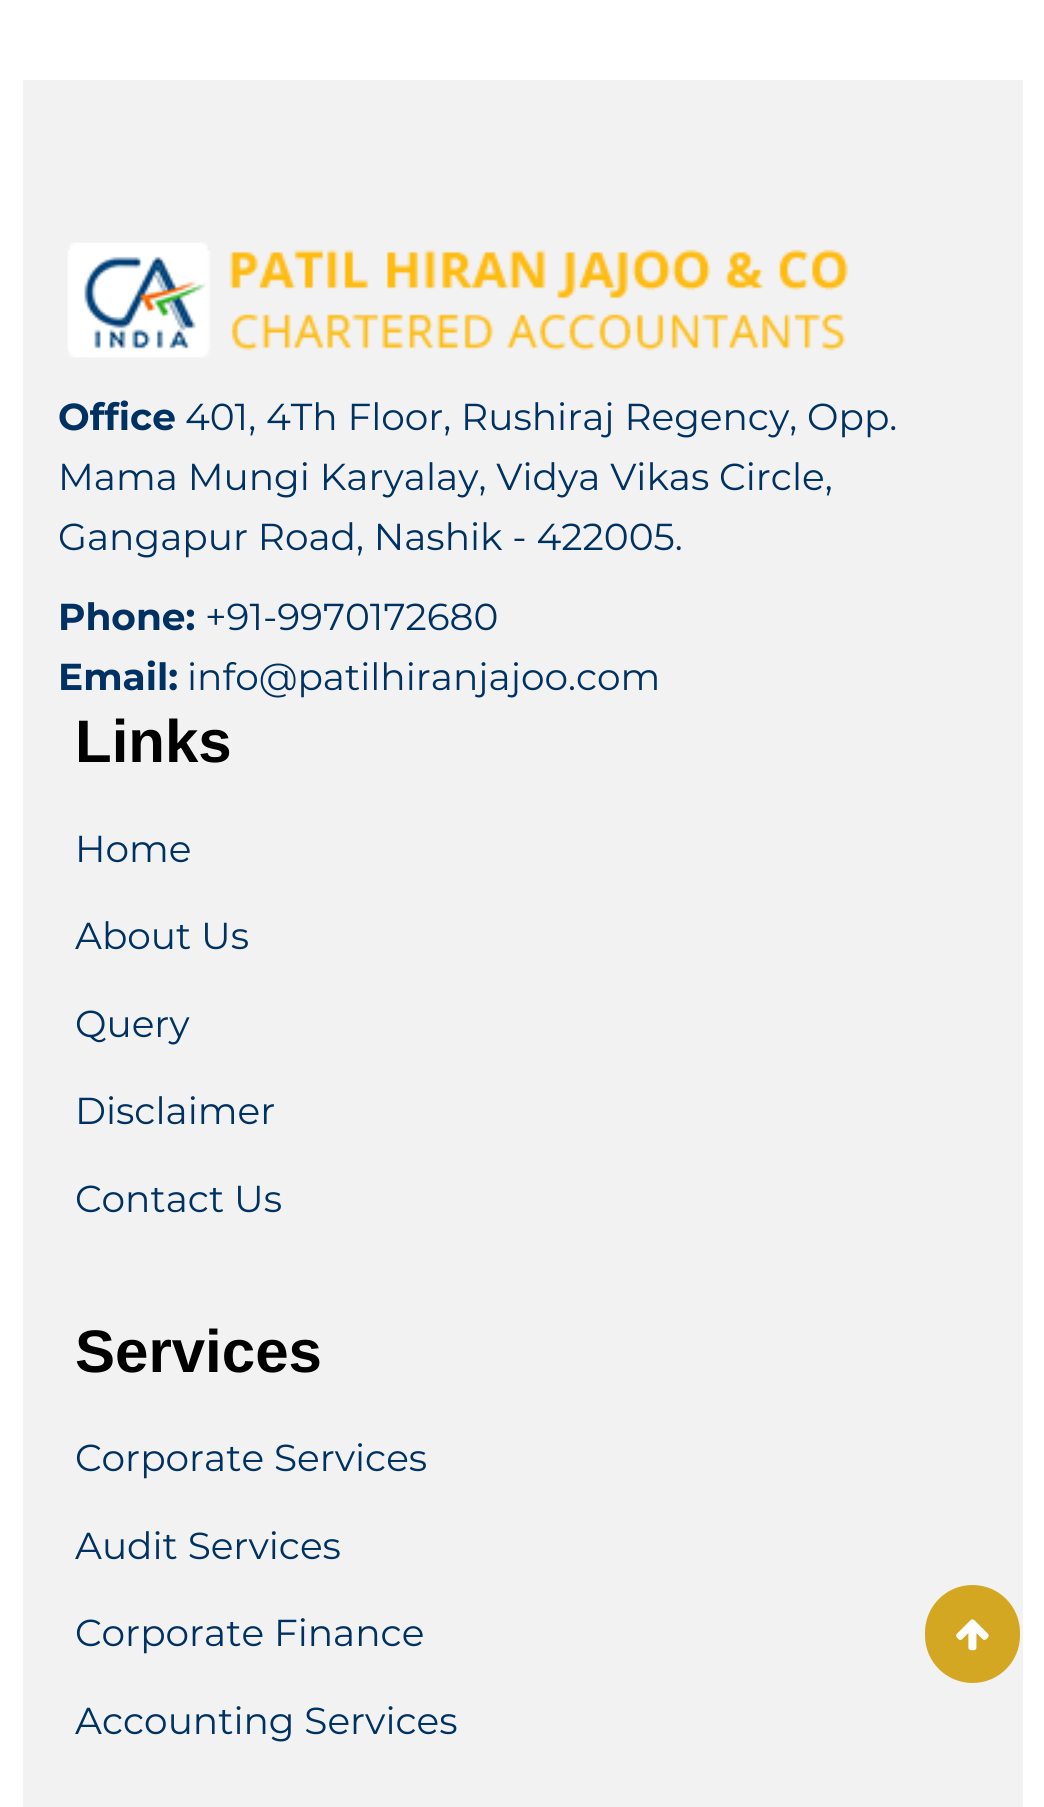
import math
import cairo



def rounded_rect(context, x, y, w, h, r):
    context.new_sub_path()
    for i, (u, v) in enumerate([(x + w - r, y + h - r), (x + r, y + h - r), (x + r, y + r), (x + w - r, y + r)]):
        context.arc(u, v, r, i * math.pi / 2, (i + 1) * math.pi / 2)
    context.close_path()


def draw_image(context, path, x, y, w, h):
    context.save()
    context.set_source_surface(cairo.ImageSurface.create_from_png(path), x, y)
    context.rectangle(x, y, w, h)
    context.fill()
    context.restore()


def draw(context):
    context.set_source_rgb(1, 1, 1)
    context.paint()
    context.set_source_rgb(242 / 255, 242 / 255, 242 / 255)
    context.rectangle(23, 80, 1000, 1727)
    context.fill()
    draw_image(context, "images/1.png", 67, 242, 782, 116)
    context.set_source_rgb(211 / 255, 167 / 255, 34 / 255)
    rounded_rect(context, 927.5, 1587.5, 90, 93, 45)
    context.fill_preserve()
    context.set_line_width(5)
    context.stroke()
    draw_image(context, "images/2.png", 956, 1619, 33, 32)
    context.select_font_face("Montserrat", cairo.FontSlant.NORMAL, cairo.FontWeight.BOLD)
    context.set_font_size(37.5)
    context.set_source_rgb(0, 49 / 255, 99 / 255)
    context.move_to(58, 430)
    context.show_text("Office")
    context.select_font_face("Montserrat")
    context.move_to(185, 430)
    context.show_text("401, 4Th Floor, Rushiraj Regency, Opp.")
    context.move_to(58, 490)
    context.show_text("Mama Mungi Karyalay, Vidya Vikas Circle,")
    context.move_to(58, 550)
    context.show_text("Gangapur Road, Nashik - 422005.")
    context.select_font_face("Montserrat", cairo.FontSlant.NORMAL, cairo.FontWeight.BOLD)
    context.move_to(58, 630)
    context.show_text("Phone:")
    context.select_font_face("Montserrat")
    context.move_to(205, 630)
    context.show_text("+91-9970172680")
    context.select_font_face("Montserrat", cairo.FontSlant.NORMAL, cairo.FontWeight.BOLD)
    context.move_to(58, 690)
    context.show_text("Email:")
    context.select_font_face("Montserrat")
    context.move_to(187, 690)
    context.show_text("info@patilhiranjajoo.com")
    context.select_font_face("Liberation Sans", cairo.FontSlant.NORMAL, cairo.FontWeight.BOLD)
    context.set_font_size(60)
    context.set_source_rgb(0, 0, 0)
    context.move_to(75, 762)
    context.show_text("Links")
    context.select_font_face("Montserrat")
    context.set_font_size(37.5)
    context.set_source_rgb(0, 49 / 255, 99 / 255)
    context.move_to(75, 862)
    context.show_text("Home")
    context.move_to(75, 949)
    context.show_text("About Us")
    context.move_to(75, 1037)
    context.show_text("Query")
    context.move_to(75, 1124)
    context.show_text("Disclaimer")
    context.move_to(75, 1212)
    context.show_text("Contact Us")
    context.select_font_face("Liberation Sans", cairo.FontSlant.NORMAL, cairo.FontWeight.BOLD)
    context.set_font_size(60)
    context.set_source_rgb(0, 0, 0)
    context.move_to(75, 1372)
    context.show_text("Services")
    context.select_font_face("Montserrat")
    context.set_font_size(37.5)
    context.set_source_rgb(0, 49 / 255, 99 / 255)
    context.move_to(75, 1471)
    context.show_text("Corporate Services")
    context.move_to(75, 1559)
    context.show_text("Audit Services")
    context.move_to(75, 1646)
    context.show_text("Corporate Finance")
    context.move_to(75, 1734)
    context.show_text("Accounting Services")


surface = cairo.ImageSurface(cairo.Format.RGB24, 1044, 1807)
context = cairo.Context(surface)
options = cairo.FontOptions()
options.set_hint_metrics(cairo.HintMetrics.OFF)
options.set_hint_style(cairo.HintStyle.NONE)
context.set_font_options(options)
context.set_miter_limit(4)
draw(context)
surface.write_to_png("out.png")
